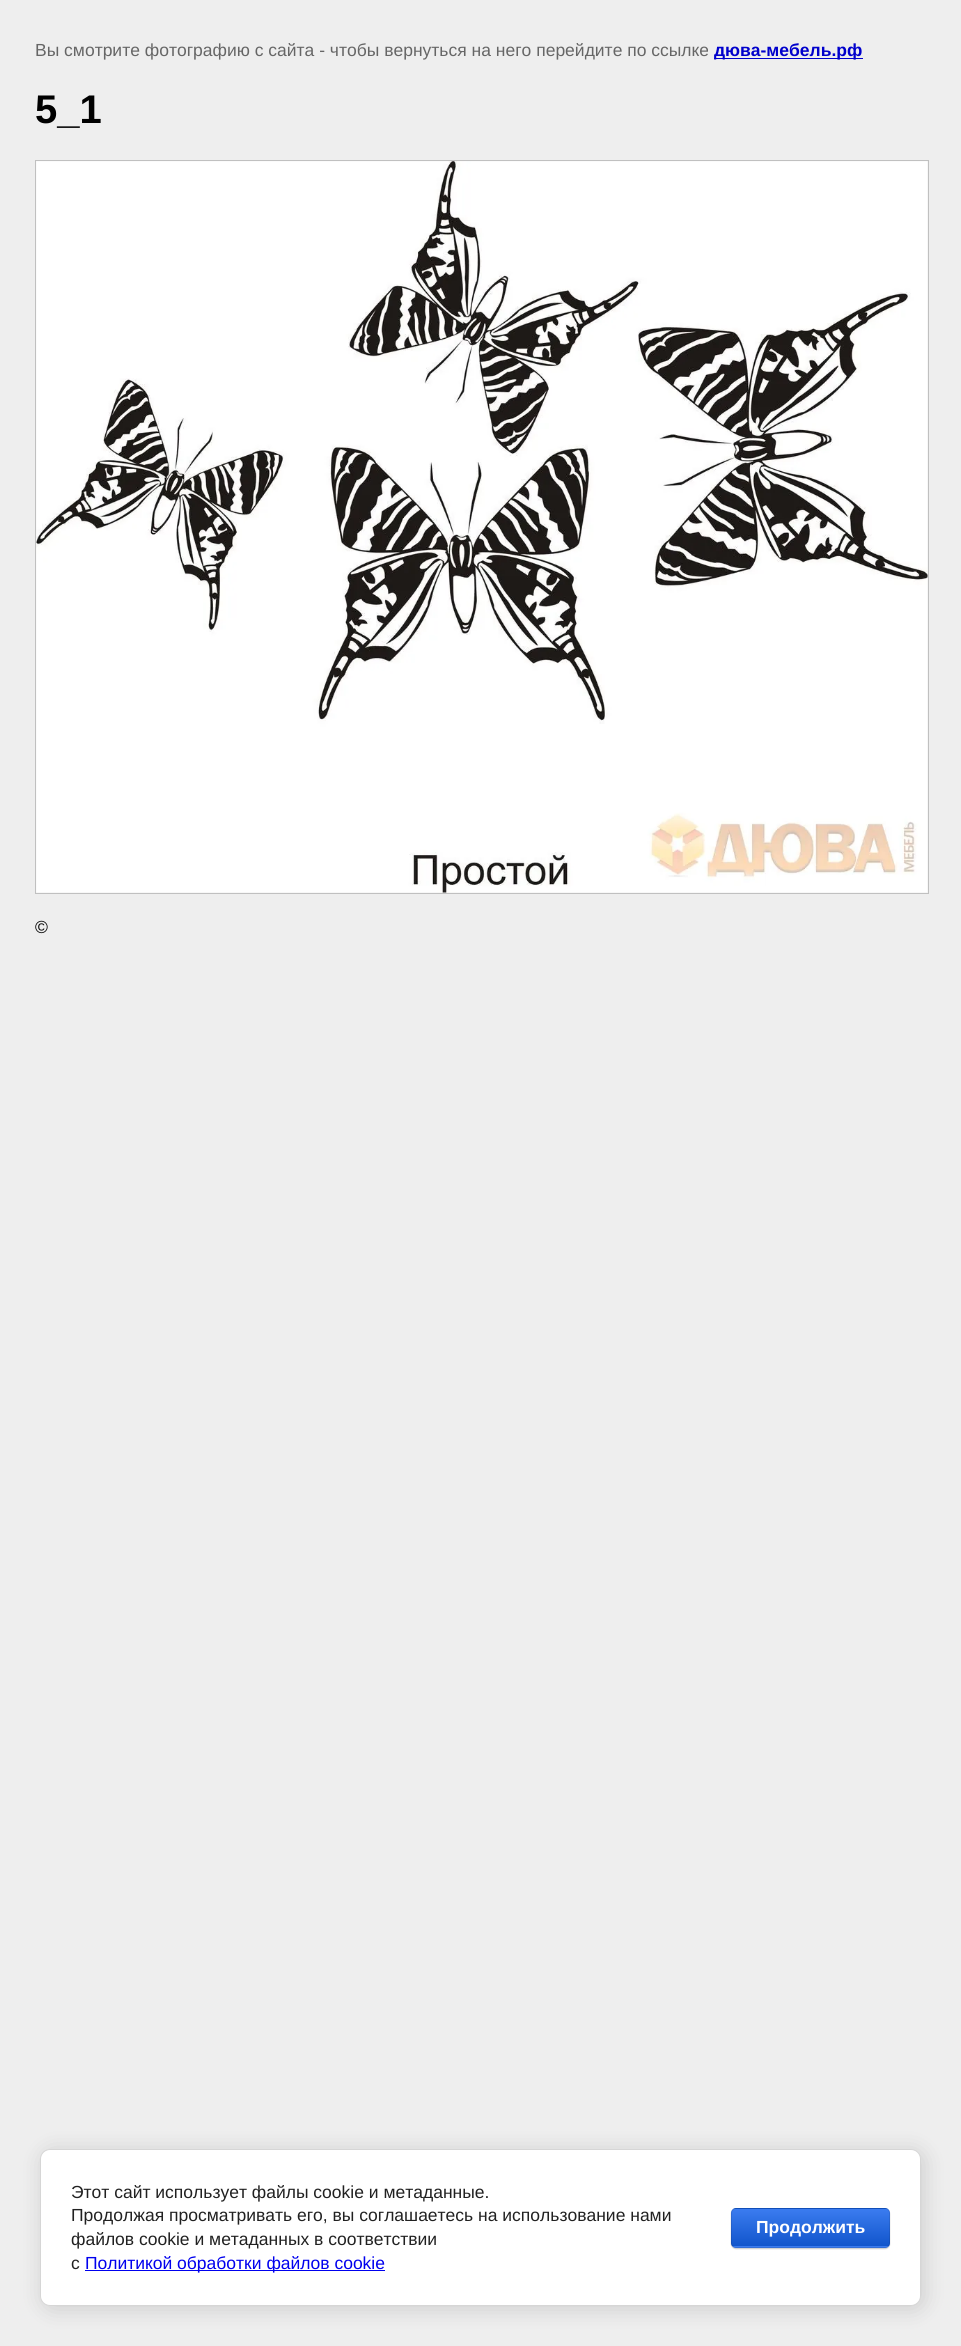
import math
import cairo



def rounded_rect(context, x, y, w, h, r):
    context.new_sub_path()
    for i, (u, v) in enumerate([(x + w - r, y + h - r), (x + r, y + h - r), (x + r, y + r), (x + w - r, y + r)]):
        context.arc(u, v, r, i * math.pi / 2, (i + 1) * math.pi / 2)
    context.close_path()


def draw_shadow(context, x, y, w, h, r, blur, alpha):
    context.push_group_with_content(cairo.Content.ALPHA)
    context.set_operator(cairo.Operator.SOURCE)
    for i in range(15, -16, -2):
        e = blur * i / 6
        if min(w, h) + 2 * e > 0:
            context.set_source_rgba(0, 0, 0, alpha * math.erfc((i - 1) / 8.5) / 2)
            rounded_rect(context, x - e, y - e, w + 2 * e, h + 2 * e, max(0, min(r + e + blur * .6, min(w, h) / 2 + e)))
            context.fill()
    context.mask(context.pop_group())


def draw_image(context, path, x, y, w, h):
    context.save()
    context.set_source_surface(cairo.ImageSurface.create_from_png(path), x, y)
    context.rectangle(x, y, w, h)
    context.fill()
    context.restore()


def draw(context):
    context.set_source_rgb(238 / 255, 238 / 255, 238 / 255)
    context.paint()
    context.set_source_rgb(0, 0, 204 / 255)
    context.rectangle(714, 58, 149, 1)
    context.fill()
    context.rectangle(35.5, 160.5, 893, 733)
    context.set_source_rgb(192 / 255, 192 / 255, 192 / 255)
    context.set_line_width(1)
    context.stroke()
    draw_image(context, "images/1.png", 36, 161, 892, 732)
    context.set_source_rgb(0, 0, 0)
    draw_shadow(context, 43, 2151, 881, 158, 10, 11, 0.14)
    context.set_source_rgb(1, 1, 1)
    rounded_rect(context, 40.5, 2149.5, 880, 156, 9.5)
    context.fill_preserve()
    context.set_source_rgb(214 / 255, 214 / 255, 214 / 255)
    context.stroke()
    context.set_source_rgb(0, 0, 238 / 255)
    context.rectangle(85, 2270, 300, 1)
    context.fill()
    context.set_source_rgb(0, 0, 0)
    draw_shadow(context, 731, 2209, 159, 40, 5, 0.5, 0.2)
    context.save()
    rounded_rect(context, 731, 2208, 159, 40, 5)
    context.clip()
    gradient = cairo.LinearGradient(811, 2171, 811, 2209)
    gradient.add_color_stop_rgba(0, 59 / 255, 124 / 255, 239 / 255, 1)
    gradient.add_color_stop_rgba(1, 17 / 255, 85 / 255, 204 / 255, 1)
    context.set_source(gradient)
    context.rectangle(731, 2208, 159, 1)
    context.fill()
    gradient = cairo.LinearGradient(811, 2209, 811, 2246)
    gradient.add_color_stop_rgba(0, 59 / 255, 124 / 255, 239 / 255, 1)
    gradient.add_color_stop_rgba(1, 17 / 255, 85 / 255, 204 / 255, 1)
    context.set_source(gradient)
    context.rectangle(731, 2209, 159, 37)
    context.fill()
    gradient = cairo.LinearGradient(811, 2246, 811, 2284)
    gradient.add_color_stop_rgba(0, 59 / 255, 124 / 255, 239 / 255, 1)
    gradient.add_color_stop_rgba(1, 17 / 255, 85 / 255, 204 / 255, 1)
    context.set_source(gradient)
    context.rectangle(731, 2246, 159, 2)
    context.fill()
    context.restore()
    rounded_rect(context, 731.5, 2208.5, 158, 39, 4.5)
    context.set_source_rgba(0, 0, 0, 0.1)
    context.stroke()
    context.select_font_face("Liberation Sans")
    context.set_font_size(17.5)
    context.set_source_rgb(102 / 255, 102 / 255, 102 / 255)
    context.move_to(35, 56)
    context.show_text("Вы смотрите фотографию с сайта - чтобы вернуться на него перейдите по ссылке")
    context.select_font_face("Liberation Sans", cairo.FontSlant.NORMAL, cairo.FontWeight.BOLD)
    context.set_source_rgb(0, 0, 204 / 255)
    context.move_to(714, 56)
    context.show_text("дюва-мебель.рф")
    context.set_font_size(40)
    context.set_source_rgb(0, 0, 0)
    context.move_to(35, 123)
    context.show_text("5_1")
    context.select_font_face("Liberation Sans")
    context.set_font_size(17.5)
    context.move_to(35, 933)
    context.show_text("©")
    context.set_source_rgb(33 / 255, 33 / 255, 33 / 255)
    context.move_to(71, 2198)
    context.show_text("Этот сайт использует файлы cookie и метаданные.")
    context.move_to(71, 2221)
    context.show_text("Продолжая просматривать его, вы соглашаетесь на использование нами")
    context.move_to(71, 2245)
    context.show_text("файлов cookie и метаданных в соответствии")
    context.move_to(71, 2269)
    context.show_text("с")
    context.set_source_rgb(0, 0, 238 / 255)
    context.move_to(85, 2269)
    context.show_text("Политикой обработки файлов cookie")
    context.select_font_face("Liberation Sans", cairo.FontSlant.NORMAL, cairo.FontWeight.BOLD)
    context.set_source_rgb(1, 1, 1)
    context.move_to(756, 2233)
    context.show_text("Продолжить")


surface = cairo.ImageSurface(cairo.Format.RGB24, 961, 2346)
context = cairo.Context(surface)
options = cairo.FontOptions()
options.set_hint_metrics(cairo.HintMetrics.OFF)
options.set_hint_style(cairo.HintStyle.NONE)
context.set_font_options(options)
context.set_miter_limit(4)
draw(context)
surface.write_to_png("out.png")
